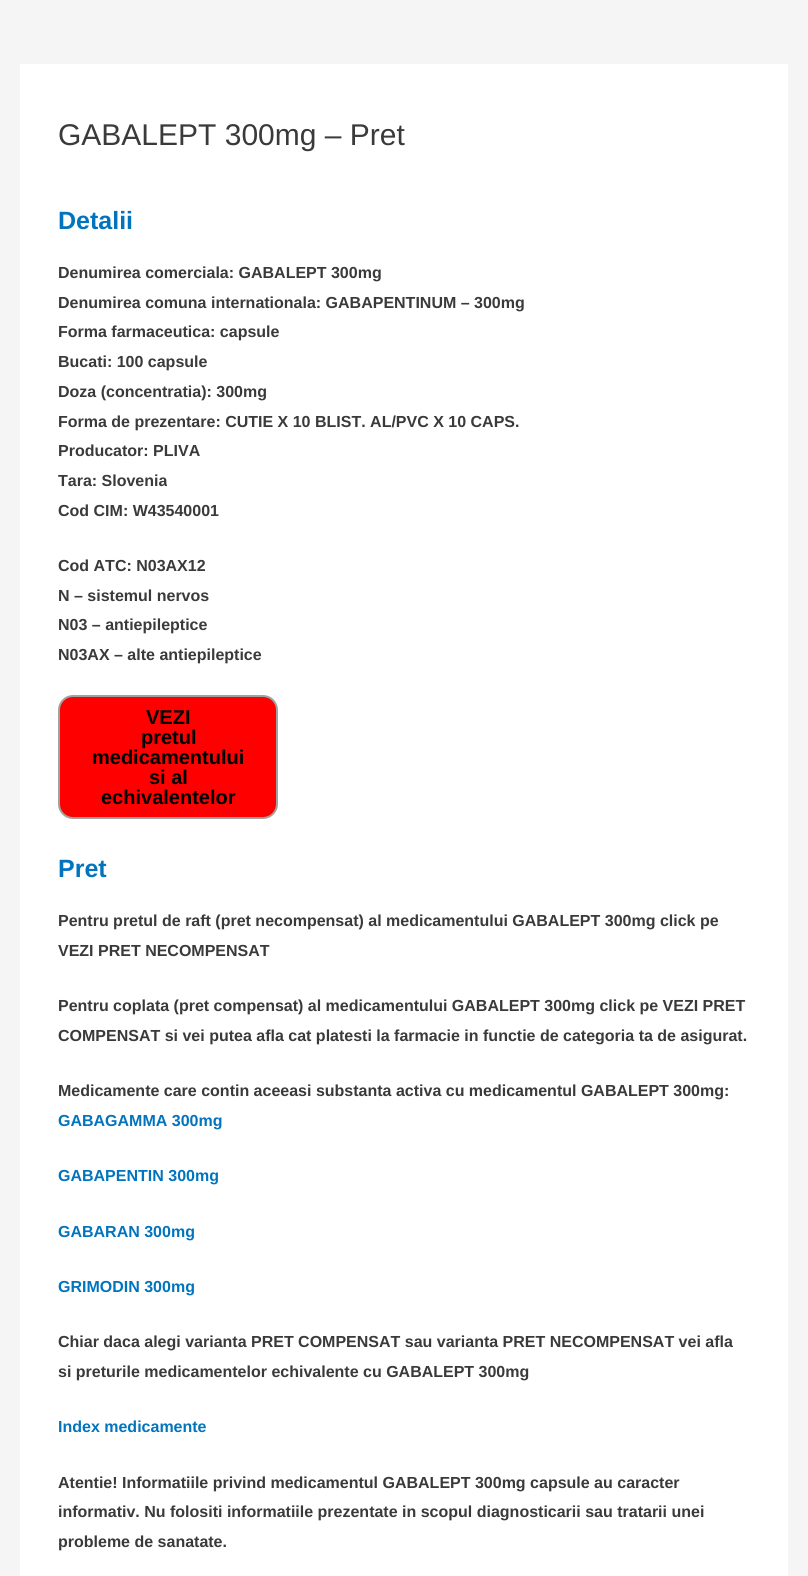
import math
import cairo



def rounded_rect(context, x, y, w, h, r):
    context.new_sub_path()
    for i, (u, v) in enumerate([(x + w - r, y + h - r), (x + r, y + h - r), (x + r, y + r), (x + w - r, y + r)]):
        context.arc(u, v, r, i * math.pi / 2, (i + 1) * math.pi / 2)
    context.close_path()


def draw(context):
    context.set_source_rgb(245 / 255, 245 / 255, 245 / 255)
    context.paint()
    context.set_source_rgb(1, 1, 1)
    context.rectangle(20, 64, 768, 1512)
    context.fill()
    context.set_source_rgb(1, 0, 0)
    rounded_rect(context, 59, 696, 218, 122, 14)
    context.fill_preserve()
    context.set_source_rgb(161 / 255, 161 / 255, 161 / 255)
    context.stroke()
    context.select_font_face("Liberation Sans")
    context.set_font_size(30)
    context.set_source_rgb(58 / 255, 58 / 255, 58 / 255)
    context.move_to(58, 145)
    context.show_text("GABALEPT 300mg – Pret")
    context.select_font_face("Liberation Sans", cairo.FontSlant.NORMAL, cairo.FontWeight.BOLD)
    context.set_font_size(25)
    context.set_source_rgb(2 / 255, 116 / 255, 190 / 255)
    context.move_to(58, 229)
    context.show_text("Detalii")
    context.set_font_size(16)
    context.set_source_rgb(58 / 255, 58 / 255, 58 / 255)
    context.move_to(58, 278)
    context.show_text("Denumirea comerciala: GABALEPT 300mg")
    context.move_to(58, 308)
    context.show_text("Denumirea comuna internationala: GABAPENTINUM – 300mg")
    context.move_to(58, 337)
    context.show_text("Forma farmaceutica: capsule")
    context.move_to(58, 367)
    context.show_text("Bucati: 100 capsule")
    context.move_to(58, 397)
    context.show_text("Doza (concentratia): 300mg")
    context.move_to(58, 427)
    context.show_text("Forma de prezentare: CUTIE X 10 BLIST. AL/PVC X 10 CAPS.")
    context.move_to(58, 456)
    context.show_text("Producator: PLIVA")
    context.move_to(58, 486)
    context.show_text("Tara: Slovenia")
    context.move_to(58, 516)
    context.show_text("Cod CIM: W43540001")
    context.move_to(58, 571)
    context.show_text("Cod ATC: N03AX12")
    context.move_to(58, 601)
    context.show_text("N – sistemul nervos")
    context.move_to(58, 630)
    context.show_text("N03 – antiepileptice")
    context.move_to(58, 660)
    context.show_text("N03AX – alte antiepileptice")
    context.set_font_size(20)
    context.set_source_rgb(0, 0, 0)
    context.move_to(146, 724)
    context.show_text("VEZI")
    context.move_to(141, 744)
    context.show_text("pretul")
    context.move_to(92, 764)
    context.show_text("medicamentului")
    context.move_to(149, 784)
    context.show_text("si al")
    context.move_to(101, 804)
    context.show_text("echivalentelor")
    context.set_font_size(25)
    context.set_source_rgb(2 / 255, 116 / 255, 190 / 255)
    context.move_to(58, 877)
    context.show_text("Pret")
    context.set_font_size(16)
    context.set_source_rgb(58 / 255, 58 / 255, 58 / 255)
    context.move_to(58, 926)
    context.show_text("Pentru pretul de raft (pret necompensat) al medicamentului GABALEPT 300mg click pe")
    context.move_to(58, 956)
    context.show_text("VEZI PRET NECOMPENSAT")
    context.move_to(58, 1011)
    context.show_text("Pentru coplata (pret compensat) al medicamentului GABALEPT 300mg click pe VEZI PRET")
    context.move_to(58, 1041)
    context.show_text("COMPENSAT si vei putea afla cat platesti la farmacie in functie de categoria ta de asigurat.")
    context.move_to(58, 1096)
    context.show_text("Medicamente care contin aceeasi substanta activa cu medicamentul GABALEPT 300mg:")
    context.set_source_rgb(2 / 255, 116 / 255, 190 / 255)
    context.move_to(58, 1126)
    context.show_text("GABAGAMMA 300mg")
    context.move_to(58, 1181)
    context.show_text("GABAPENTIN 300mg")
    context.move_to(58, 1237)
    context.show_text("GABARAN 300mg")
    context.move_to(58, 1292)
    context.show_text("GRIMODIN 300mg")
    context.set_source_rgb(58 / 255, 58 / 255, 58 / 255)
    context.move_to(58, 1347)
    context.show_text("Chiar daca alegi varianta PRET COMPENSAT sau varianta PRET NECOMPENSAT vei afla")
    context.move_to(58, 1377)
    context.show_text("si preturile medicamentelor echivalente cu GABALEPT 300mg")
    context.set_source_rgb(2 / 255, 116 / 255, 190 / 255)
    context.move_to(58, 1432)
    context.show_text("Index medicamente")
    context.set_source_rgb(58 / 255, 58 / 255, 58 / 255)
    context.move_to(58, 1488)
    context.show_text("Atentie! Informatiile privind medicamentul GABALEPT 300mg capsule au caracter")
    context.move_to(58, 1517)
    context.show_text("informativ. Nu folositi informatiile prezentate in scopul diagnosticarii sau tratarii unei")
    context.move_to(58, 1547)
    context.show_text("probleme de sanatate.")


surface = cairo.ImageSurface(cairo.Format.RGB24, 808, 1576)
context = cairo.Context(surface)
options = cairo.FontOptions()
options.set_hint_metrics(cairo.HintMetrics.OFF)
options.set_hint_style(cairo.HintStyle.NONE)
context.set_font_options(options)
context.set_miter_limit(4)
draw(context)
surface.write_to_png("out.png")
